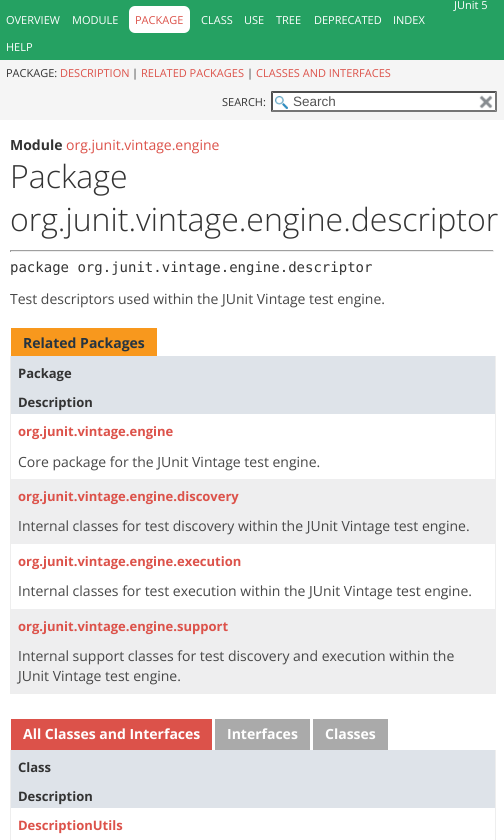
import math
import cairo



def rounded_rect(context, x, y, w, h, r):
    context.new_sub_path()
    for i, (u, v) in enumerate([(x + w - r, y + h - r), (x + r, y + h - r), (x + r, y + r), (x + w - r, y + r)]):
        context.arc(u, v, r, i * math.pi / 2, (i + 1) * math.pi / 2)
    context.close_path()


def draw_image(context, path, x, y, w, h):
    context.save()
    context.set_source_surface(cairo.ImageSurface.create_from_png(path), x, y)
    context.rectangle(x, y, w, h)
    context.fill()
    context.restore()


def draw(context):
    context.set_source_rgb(1, 1, 1)
    context.paint()
    context.set_source_rgb(37 / 255, 161 / 255, 98 / 255)
    context.rectangle(0, 0, 504, 60)
    context.fill()
    context.set_source_rgb(1, 1, 1)
    rounded_rect(context, 129, 6, 61, 27, 6)
    context.fill()
    context.set_source_rgb(245 / 255, 245 / 255, 245 / 255)
    context.rectangle(0, 60, 504, 60)
    context.fill()
    context.set_source_rgb(1, 1, 1)
    context.rectangle(271, 91, 226, 21)
    context.fill()
    draw_image(context, "images/1.png", 275, 96, 13, 13)
    context.set_source_rgb(79 / 255, 79 / 255, 79 / 255)
    context.new_path()
    context.move_to(271, 91)
    context.line_to(497, 91)
    context.line_to(495, 93)
    context.line_to(273, 93)
    context.close_path()
    context.fill()
    context.set_source_rgb(118 / 255, 118 / 255, 118 / 255)
    context.new_path()
    context.move_to(497, 91)
    context.line_to(497, 112)
    context.line_to(495, 110)
    context.line_to(495, 93)
    context.close_path()
    context.fill()
    context.new_path()
    context.move_to(497, 112)
    context.line_to(271, 112)
    context.line_to(273, 110)
    context.line_to(495, 110)
    context.close_path()
    context.fill()
    context.set_source_rgb(79 / 255, 79 / 255, 79 / 255)
    context.new_path()
    context.move_to(271, 112)
    context.line_to(271, 91)
    context.line_to(273, 93)
    context.line_to(273, 110)
    context.close_path()
    context.fill()
    draw_image(context, "images/2.png", 479, 95, 14, 14)
    context.set_source_rgb(159 / 255, 159 / 255, 159 / 255)
    context.rectangle(10, 250, 484, 1)
    context.fill()
    context.set_source_rgb(238 / 255, 238 / 255, 238 / 255)
    context.rectangle(493, 250, 1, 2)
    context.fill()
    context.rectangle(10, 251, 484, 1)
    context.fill()
    context.set_source_rgb(159 / 255, 159 / 255, 159 / 255)
    context.rectangle(10, 250, 1, 2)
    context.fill()
    context.set_source_rgb(248 / 255, 152 / 255, 29 / 255)
    context.rectangle(11, 328, 146, 28)
    context.fill()
    context.set_source_rgb(238 / 255, 238 / 255, 238 / 255)
    context.rectangle(495, 356, 1, 338)
    context.fill()
    context.rectangle(10, 693, 486, 1)
    context.fill()
    context.rectangle(10, 356, 1, 338)
    context.fill()
    context.set_source_rgb(222 / 255, 227 / 255, 233 / 255)
    context.rectangle(11, 356, 484, 58)
    context.fill()
    context.set_source_rgb(238 / 255, 238 / 255, 239 / 255)
    context.rectangle(11, 479, 484, 65)
    context.fill()
    context.rectangle(11, 609, 484, 84)
    context.fill()
    context.set_source_rgb(220 / 255, 82 / 255, 74 / 255)
    context.rectangle(11, 719, 201, 31)
    context.fill()
    context.set_source_rgb(170 / 255, 170 / 255, 170 / 255)
    context.rectangle(215, 719, 95, 31)
    context.fill()
    context.rectangle(313, 719, 75, 31)
    context.fill()
    context.set_source_rgb(238 / 255, 238 / 255, 238 / 255)
    context.rectangle(495, 750, 1, 90)
    context.fill()
    context.rectangle(10, 750, 1, 90)
    context.fill()
    context.set_source_rgb(222 / 255, 227 / 255, 233 / 255)
    context.rectangle(11, 750, 484, 58)
    context.fill()
    context.select_font_face("Open Sans")
    context.set_font_size(11)
    context.set_source_rgb(1, 1, 1)
    context.move_to(454, 9)
    context.show_text("JUnit 5")
    context.move_to(6, 24)
    context.show_text("OVERVIEW")
    context.move_to(72, 24)
    context.show_text("MODULE")
    context.set_source_rgb(220 / 255, 82 / 255, 74 / 255)
    context.move_to(135, 24)
    context.show_text("PACKAGE")
    context.set_source_rgb(1, 1, 1)
    context.move_to(201, 24)
    context.show_text("CLASS")
    context.move_to(244, 24)
    context.show_text("USE")
    context.move_to(276, 24)
    context.show_text("TREE")
    context.move_to(314, 24)
    context.show_text("DEPRECATED")
    context.move_to(393, 24)
    context.show_text("INDEX")
    context.move_to(6, 51)
    context.show_text("HELP")
    context.set_source_rgb(51 / 255, 51 / 255, 51 / 255)
    context.move_to(6, 77)
    context.show_text("PACKAGE:")
    context.set_source_rgb(220 / 255, 82 / 255, 74 / 255)
    context.move_to(60, 77)
    context.show_text("DESCRIPTION")
    context.set_source_rgb(51 / 255, 51 / 255, 51 / 255)
    context.move_to(132, 77)
    context.show_text("|")
    context.set_source_rgb(220 / 255, 82 / 255, 74 / 255)
    context.move_to(141, 77)
    context.show_text("RELATED PACKAGES")
    context.set_source_rgb(51 / 255, 51 / 255, 51 / 255)
    context.move_to(247, 77)
    context.show_text("|")
    context.set_source_rgb(220 / 255, 82 / 255, 74 / 255)
    context.move_to(256, 77)
    context.show_text("CLASSES AND INTERFACES")
    context.set_source_rgb(51 / 255, 51 / 255, 51 / 255)
    context.move_to(222, 106)
    context.show_text("SEARCH:")
    context.select_font_face("Liberation Sans")
    context.set_font_size(13.5)
    context.set_source_rgb(84 / 255, 84 / 255, 84 / 255)
    context.move_to(293, 106)
    context.show_text("Search")
    context.select_font_face("Open Sans", cairo.FontSlant.NORMAL, cairo.FontWeight.BOLD)
    context.set_font_size(14)
    context.set_source_rgb(51 / 255, 51 / 255, 51 / 255)
    context.move_to(10, 150)
    context.show_text("Module")
    context.select_font_face("Open Sans")
    context.set_source_rgb(220 / 255, 82 / 255, 74 / 255)
    context.move_to(66, 150)
    context.show_text("org.junit.vintage.engine")
    context.select_font_face("Open Sans Light")
    context.set_font_size(32)
    context.set_source_rgb(51 / 255, 51 / 255, 51 / 255)
    context.move_to(10, 188)
    context.show_text("Package")
    context.move_to(10, 231)
    context.show_text("org.junit.vintage.engine.descriptor")
    context.select_font_face("DejaVu Sans Mono")
    context.set_font_size(14)
    context.move_to(10, 272)
    context.show_text("package org.junit.vintage.engine.descriptor")
    context.select_font_face("Open Sans")
    context.set_source_rgb(71 / 255, 71 / 255, 71 / 255)
    context.move_to(10, 304)
    context.show_text("Test descriptors used within the JUnit Vintage test engine.")
    context.select_font_face("Open Sans", cairo.FontSlant.NORMAL, cairo.FontWeight.BOLD)
    context.set_source_rgb(37 / 255, 52 / 255, 65 / 255)
    context.move_to(23, 348)
    context.show_text("Related Packages")
    context.set_font_size(13)
    context.set_source_rgb(51 / 255, 51 / 255, 51 / 255)
    context.move_to(18, 378)
    context.show_text("Package")
    context.move_to(18, 407)
    context.show_text("Description")
    context.set_source_rgb(220 / 255, 82 / 255, 74 / 255)
    context.move_to(18, 436)
    context.show_text("org.junit.vintage.engine")
    context.select_font_face("Open Sans")
    context.set_font_size(14)
    context.set_source_rgb(71 / 255, 71 / 255, 71 / 255)
    context.move_to(18, 467)
    context.show_text("Core package for the JUnit Vintage test engine.")
    context.select_font_face("Open Sans", cairo.FontSlant.NORMAL, cairo.FontWeight.BOLD)
    context.set_font_size(13)
    context.set_source_rgb(220 / 255, 82 / 255, 74 / 255)
    context.move_to(18, 501)
    context.show_text("org.junit.vintage.engine.discovery")
    context.select_font_face("Open Sans")
    context.set_font_size(14)
    context.set_source_rgb(71 / 255, 71 / 255, 71 / 255)
    context.move_to(18, 531)
    context.show_text("Internal classes for test discovery within the JUnit Vintage test engine.")
    context.select_font_face("Open Sans", cairo.FontSlant.NORMAL, cairo.FontWeight.BOLD)
    context.set_font_size(13)
    context.set_source_rgb(220 / 255, 82 / 255, 74 / 255)
    context.move_to(18, 566)
    context.show_text("org.junit.vintage.engine.execution")
    context.select_font_face("Open Sans")
    context.set_font_size(14)
    context.set_source_rgb(71 / 255, 71 / 255, 71 / 255)
    context.move_to(18, 596)
    context.show_text("Internal classes for test execution within the JUnit Vintage test engine.")
    context.select_font_face("Open Sans", cairo.FontSlant.NORMAL, cairo.FontWeight.BOLD)
    context.set_font_size(13)
    context.set_source_rgb(220 / 255, 82 / 255, 74 / 255)
    context.move_to(18, 631)
    context.show_text("org.junit.vintage.engine.support")
    context.select_font_face("Open Sans")
    context.set_font_size(14)
    context.set_source_rgb(71 / 255, 71 / 255, 71 / 255)
    context.move_to(18, 661)
    context.show_text("Internal support classes for test discovery and execution within the")
    context.move_to(18, 681)
    context.show_text("JUnit Vintage test engine.")
    context.select_font_face("Open Sans", cairo.FontSlant.NORMAL, cairo.FontWeight.BOLD)
    context.set_source_rgb(1, 1, 1)
    context.move_to(23, 739)
    context.show_text("All Classes and Interfaces")
    context.move_to(227, 739)
    context.show_text("Interfaces")
    context.move_to(325, 739)
    context.show_text("Classes")
    context.set_font_size(13)
    context.set_source_rgb(51 / 255, 51 / 255, 51 / 255)
    context.move_to(18, 772)
    context.show_text("Class")
    context.move_to(18, 801)
    context.show_text("Description")
    context.set_source_rgb(220 / 255, 82 / 255, 74 / 255)
    context.move_to(18, 830)
    context.show_text("DescriptionUtils")


surface = cairo.ImageSurface(cairo.Format.RGB24, 504, 840)
context = cairo.Context(surface)
options = cairo.FontOptions()
options.set_hint_metrics(cairo.HintMetrics.OFF)
options.set_hint_style(cairo.HintStyle.NONE)
context.set_font_options(options)
context.set_miter_limit(4)
draw(context)
surface.write_to_png("out.png")
